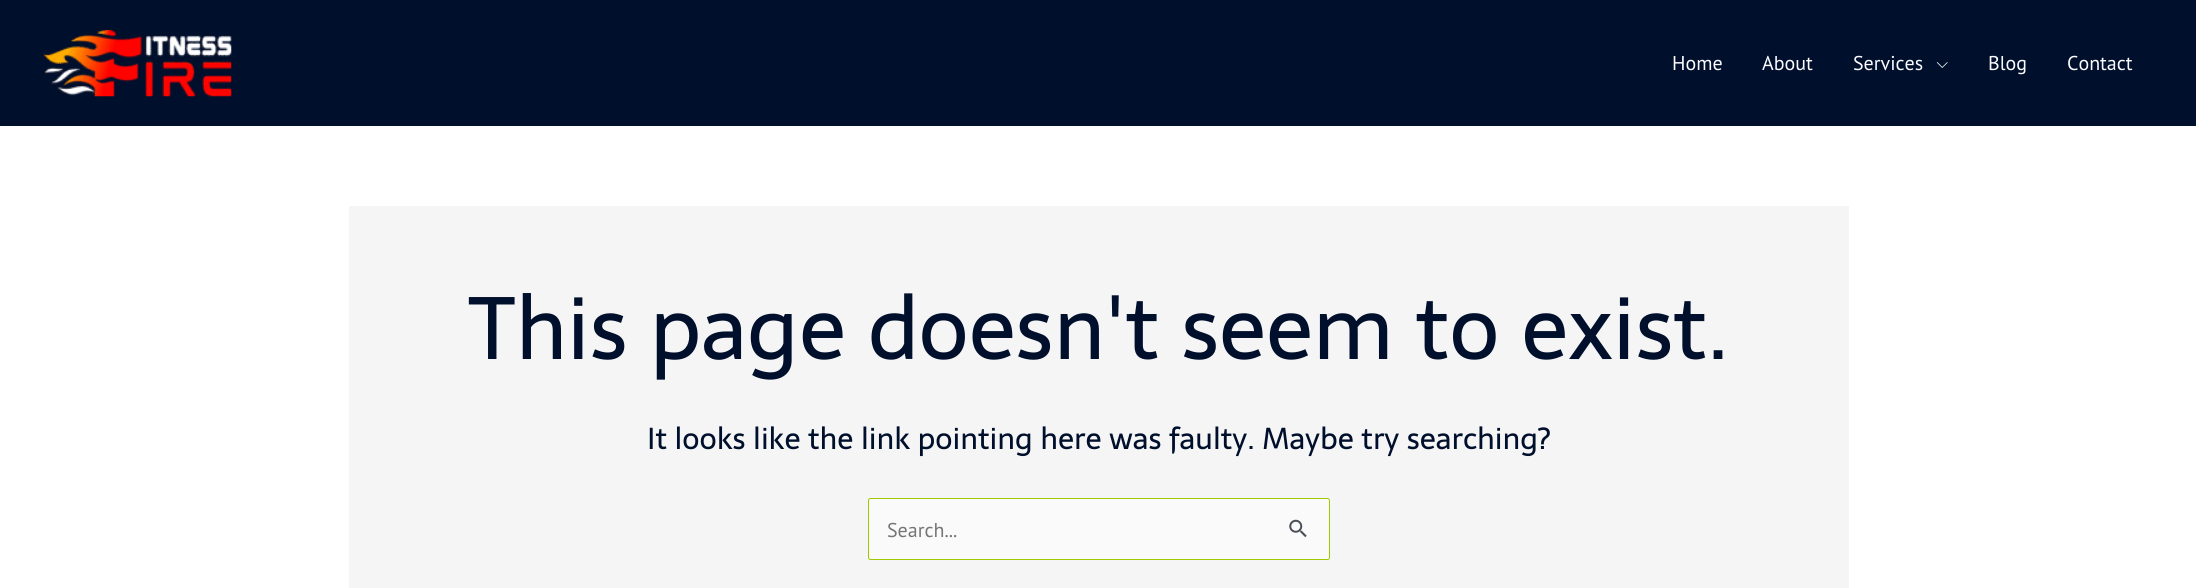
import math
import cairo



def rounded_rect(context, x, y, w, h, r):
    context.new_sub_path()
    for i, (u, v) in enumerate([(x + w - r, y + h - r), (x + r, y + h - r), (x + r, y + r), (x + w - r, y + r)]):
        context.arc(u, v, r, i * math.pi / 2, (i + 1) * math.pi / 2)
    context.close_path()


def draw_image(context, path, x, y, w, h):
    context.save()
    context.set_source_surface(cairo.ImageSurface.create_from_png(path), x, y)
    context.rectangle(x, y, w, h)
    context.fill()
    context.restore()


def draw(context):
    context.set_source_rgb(1, 1, 1)
    context.paint()
    context.set_source_rgb(0, 15 / 255, 43 / 255)
    context.rectangle(0, 0, 2196, 126)
    context.fill()
    draw_image(context, "images/1.png", 43, 30, 189, 67)
    draw_image(context, "images/2.png", 1936, 62, 12, 6)
    context.set_source_rgb(245 / 255, 245 / 255, 245 / 255)
    context.rectangle(349, 206, 1500, 382)
    context.fill()
    context.set_source_rgb(250 / 255, 250 / 255, 250 / 255)
    rounded_rect(context, 868.5, 498.5, 461, 61, 2)
    context.fill_preserve()
    context.set_source_rgb(157 / 255, 202 / 255, 0)
    context.set_line_width(1)
    context.stroke()
    draw_image(context, "images/3.png", 1289, 519, 18, 19)
    context.select_font_face("PT Sans")
    context.set_font_size(20)
    context.set_source_rgb(251 / 255, 252 / 255, 1)
    context.move_to(1672, 70)
    context.show_text("Home")
    context.move_to(1762, 70)
    context.show_text("About")
    context.move_to(1853, 70)
    context.show_text("Services")
    context.move_to(1988, 70)
    context.show_text("Blog")
    context.move_to(2067, 70)
    context.show_text("Contact")
    context.select_font_face("Sarala")
    context.set_font_size(87.5)
    context.set_source_rgb(0, 15 / 255, 43 / 255)
    context.move_to(468, 359)
    context.show_text("This page doesn't seem to exist.")
    context.set_font_size(30)
    context.move_to(647, 449)
    context.show_text("It looks like the link pointing here was faulty. Maybe try searching?")
    context.select_font_face("PT Sans")
    context.set_font_size(20)
    context.set_source_rgb(117 / 255, 117 / 255, 117 / 255)
    context.move_to(887, 537)
    context.show_text("Search...")


surface = cairo.ImageSurface(cairo.Format.RGB24, 2196, 588)
context = cairo.Context(surface)
options = cairo.FontOptions()
options.set_hint_metrics(cairo.HintMetrics.OFF)
options.set_hint_style(cairo.HintStyle.NONE)
context.set_font_options(options)
context.set_miter_limit(4)
draw(context)
surface.write_to_png("out.png")
